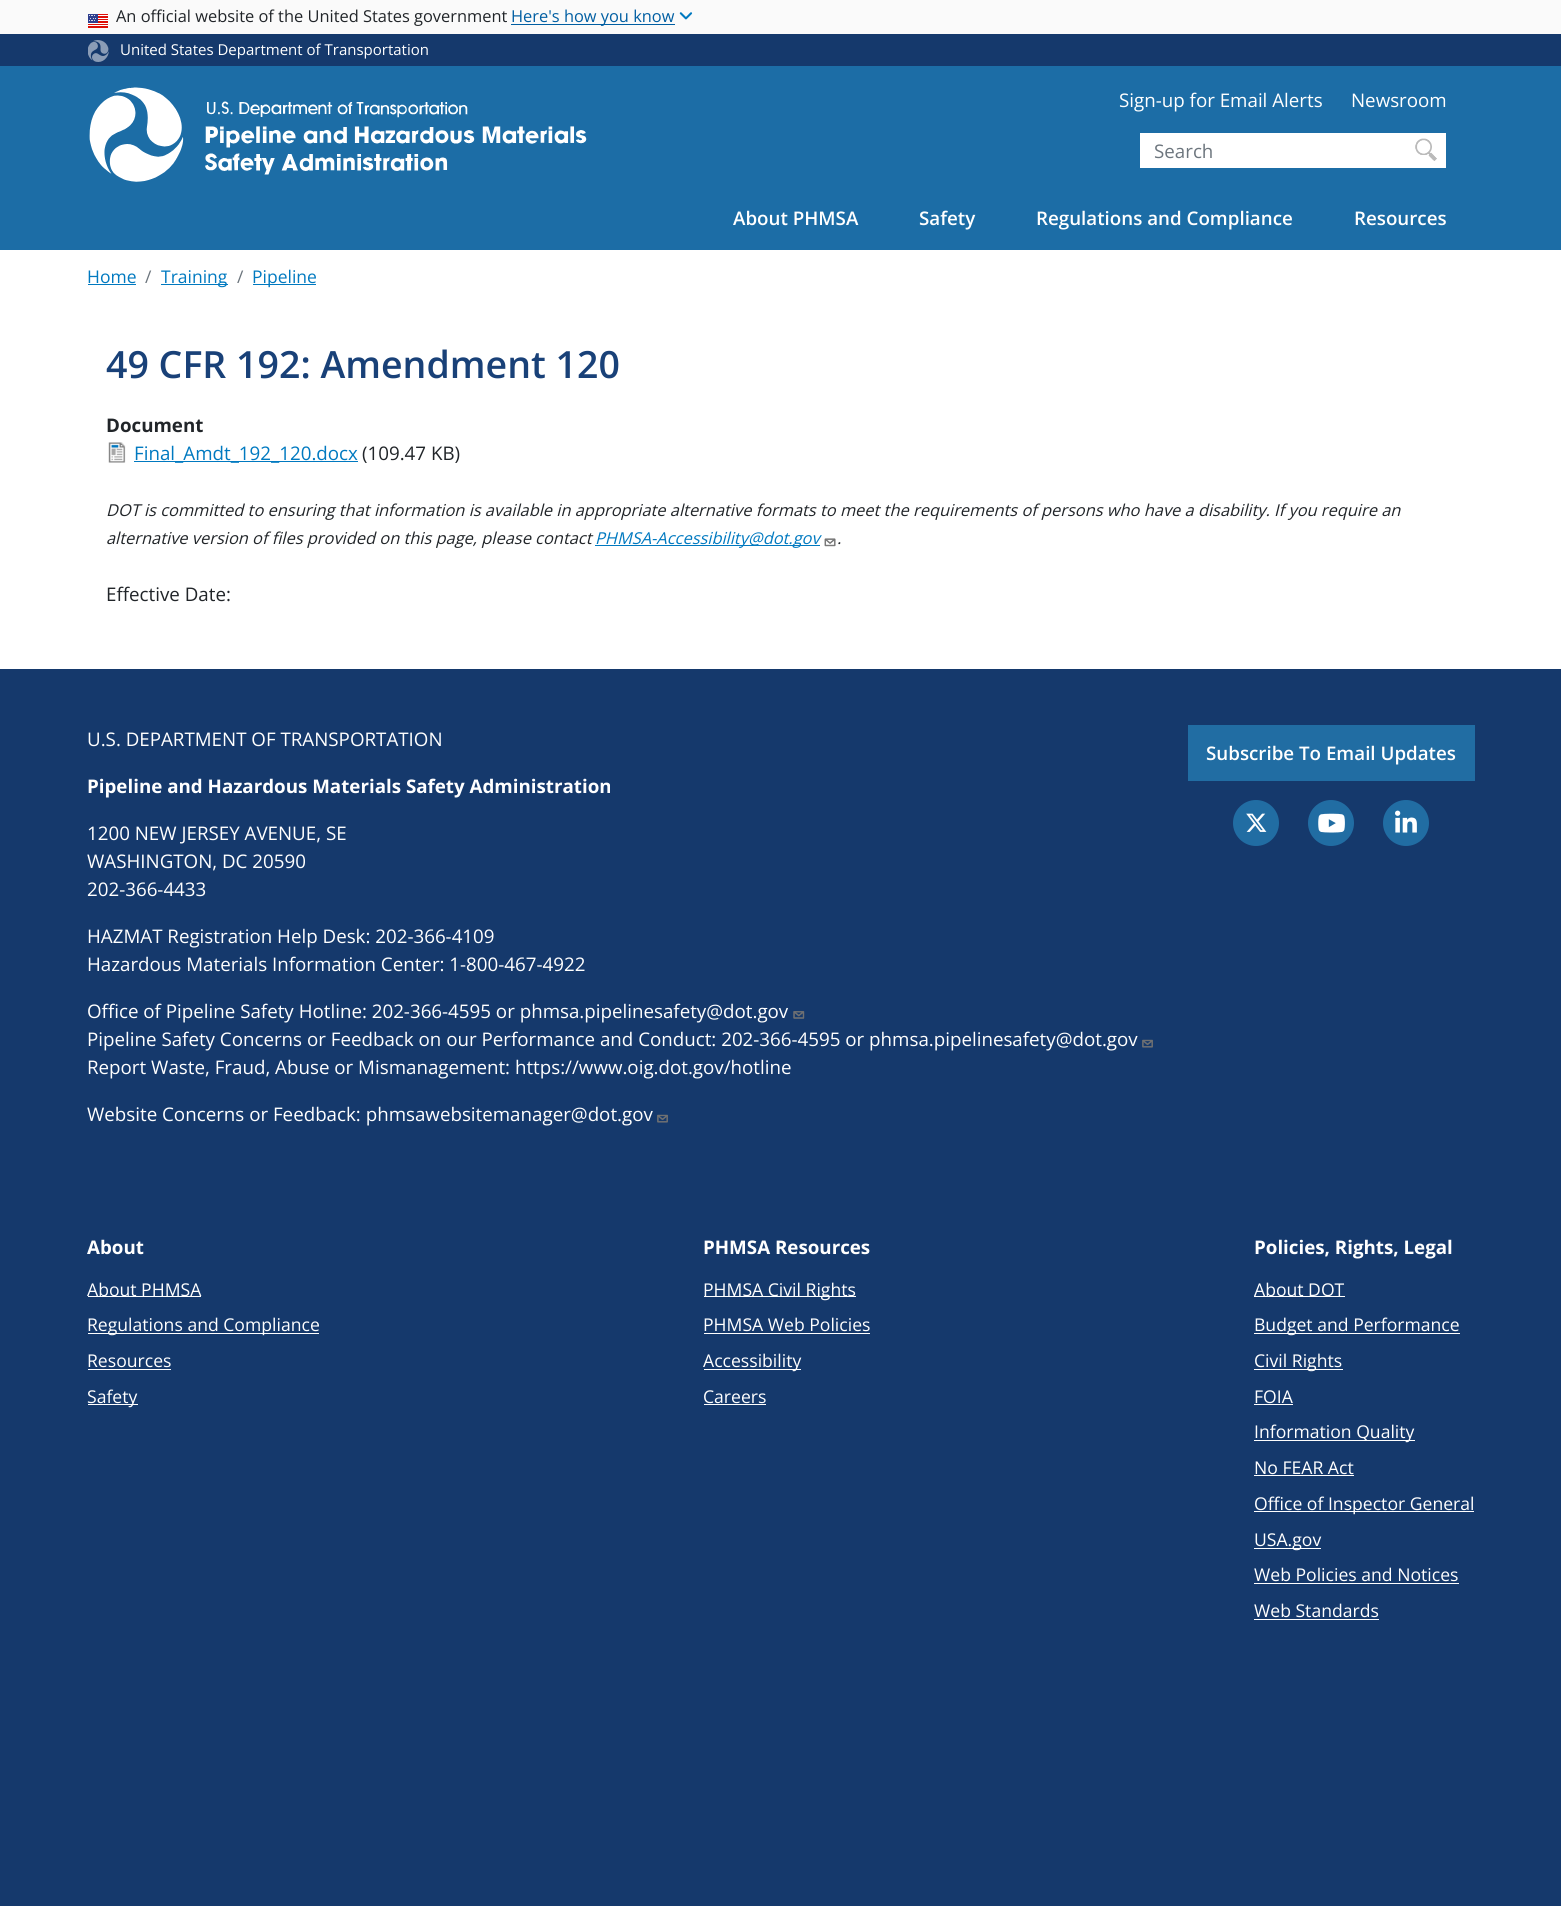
import math
import cairo



def draw_image(context, path, x, y, w, h):
    context.save()
    context.set_source_surface(cairo.ImageSurface.create_from_png(path), x, y)
    context.rectangle(x, y, w, h)
    context.fill()
    context.restore()


def draw(context):
    context.set_source_rgb(21 / 255, 57 / 255, 108 / 255)
    context.paint()
    context.set_source_rgb(1, 1, 1)
    context.rectangle(0, 250, 1561, 419)
    context.fill()
    context.set_source_rgb(250 / 255, 250 / 255, 250 / 255)
    context.rectangle(0, 0, 1561, 34)
    context.fill()
    draw_image(context, "images/1.png", 88, 14, 20, 14)
    context.set_source_rgb(0, 94 / 255, 162 / 255)
    context.rectangle(511, 24, 164, 1)
    context.fill()
    draw_image(context, "images/2.png", 679, 12, 14, 8)
    draw_image(context, "images/3.png", 88, 40, 21, 22)
    context.set_source_rgb(28 / 255, 109 / 255, 166 / 255)
    context.rectangle(0, 66, 1561, 184)
    context.fill()
    draw_image(context, "images/4.png", 89, 87, 498, 95)
    context.set_source_rgb(1, 1, 1)
    context.rectangle(1140, 133, 306, 35)
    context.fill()
    draw_image(context, "images/5.png", 1415, 138, 22, 23)
    context.set_source_rgb(0, 121 / 255, 192 / 255)
    context.rectangle(88, 284, 48, 1)
    context.fill()
    context.rectangle(161, 284, 67, 1)
    context.fill()
    context.rectangle(253, 284, 63, 1)
    context.fill()
    draw_image(context, "images/6.png", 108, 442, 18, 21)
    context.rectangle(134, 461, 224, 1)
    context.fill()
    context.rectangle(595, 545, 225, 1)
    context.fill()
    draw_image(context, "images/7.png", 824, 538, 12, 9)
    draw_image(context, "images/8.png", 793, 1011, 12, 8)
    draw_image(context, "images/9.png", 1142, 1039, 11, 9)
    draw_image(context, "images/9.png", 657, 1114, 11, 9)
    context.set_source_rgb(33 / 255, 109 / 255, 163 / 255)
    context.rectangle(1188, 725, 287, 56)
    context.fill()
    context.arc(1256, 823, 23, 0, 2 * math.pi)
    context.fill()
    draw_image(context, "images/10.png", 1246, 813, 21, 19)
    context.arc(1331, 823, 23, 0, 2 * math.pi)
    context.fill()
    draw_image(context, "images/11.png", 1318, 813, 27, 20)
    context.arc(1406, 823, 23, 0, 2 * math.pi)
    context.fill()
    draw_image(context, "images/12.png", 1395, 810, 22, 23)
    context.set_source_rgb(1, 1, 1)
    context.rectangle(88, 1296, 113, 1)
    context.fill()
    context.rectangle(88, 1333, 231, 1)
    context.fill()
    context.rectangle(88, 1369, 83, 1)
    context.fill()
    context.rectangle(88, 1404, 50, 1)
    context.fill()
    context.rectangle(704, 1296, 152, 1)
    context.fill()
    context.rectangle(704, 1333, 166, 1)
    context.fill()
    context.rectangle(704, 1369, 97, 1)
    context.fill()
    context.rectangle(704, 1404, 62, 1)
    context.fill()
    context.rectangle(1254, 1296, 91, 1)
    context.fill()
    context.rectangle(1254, 1333, 206, 1)
    context.fill()
    context.rectangle(1254, 1369, 89, 1)
    context.fill()
    context.rectangle(1254, 1404, 39, 1)
    context.fill()
    context.rectangle(1254, 1440, 161, 1)
    context.fill()
    context.rectangle(1254, 1475, 100, 1)
    context.fill()
    context.rectangle(1254, 1511, 220, 1)
    context.fill()
    context.rectangle(1254, 1548, 67, 1)
    context.fill()
    context.rectangle(1254, 1583, 205, 1)
    context.fill()
    context.rectangle(1254, 1619, 125, 1)
    context.fill()
    context.select_font_face("Open Sans")
    context.set_font_size(16.4)
    context.set_source_rgb(33 / 255, 37 / 255, 41 / 255)
    context.move_to(116, 22)
    context.show_text("An official website of the United States government")
    context.set_source_rgb(0, 94 / 255, 162 / 255)
    context.move_to(511, 22)
    context.show_text("Here's how you know")
    context.set_font_size(15)
    context.set_source_rgb(1, 1, 1)
    context.move_to(120, 55)
    context.show_text("United States Department of Transportation")
    context.set_font_size(18.75)
    context.move_to(1119, 107)
    context.show_text("Sign-up for Email Alerts")
    context.move_to(1351, 107)
    context.show_text("Newsroom")
    context.set_source_rgb(108 / 255, 117 / 255, 125 / 255)
    context.move_to(1154, 158)
    context.show_text("Search")
    context.select_font_face("Open Sans SemiBold")
    context.set_source_rgb(1, 1, 1)
    context.move_to(733, 225)
    context.show_text("About PHMSA")
    context.move_to(919, 225)
    context.show_text("Safety")
    context.move_to(1036, 225)
    context.show_text("Regulations and Compliance")
    context.move_to(1354, 225)
    context.show_text("Resources")
    context.select_font_face("Open Sans")
    context.set_font_size(17.5)
    context.set_source_rgb(0, 121 / 255, 192 / 255)
    context.move_to(87, 283)
    context.show_text("Home")
    context.set_source_rgb(108 / 255, 117 / 255, 125 / 255)
    context.move_to(145, 283)
    context.show_text("/")
    context.set_source_rgb(0, 121 / 255, 192 / 255)
    context.move_to(161, 283)
    context.show_text("Training")
    context.set_source_rgb(108 / 255, 117 / 255, 125 / 255)
    context.move_to(237, 283)
    context.show_text("/")
    context.set_source_rgb(0, 121 / 255, 192 / 255)
    context.move_to(252, 283)
    context.show_text("Pipeline")
    context.select_font_face("Open Sans SemiBold")
    context.set_font_size(37.5)
    context.set_source_rgb(25 / 255, 65 / 255, 120 / 255)
    context.move_to(106, 378)
    context.show_text("49 CFR 192: Amendment 120")
    context.select_font_face("Open Sans", cairo.FontSlant.NORMAL, cairo.FontWeight.BOLD)
    context.set_font_size(18.75)
    context.set_source_rgb(33 / 255, 37 / 255, 41 / 255)
    context.move_to(106, 432)
    context.show_text("Document")
    context.select_font_face("Open Sans")
    context.set_source_rgb(0, 121 / 255, 192 / 255)
    context.move_to(134, 460)
    context.show_text("Final_Amdt_192_120.docx")
    context.set_source_rgb(33 / 255, 37 / 255, 41 / 255)
    context.move_to(362, 460)
    context.show_text("(109.47 KB)")
    context.select_font_face("Open Sans", cairo.FontSlant.ITALIC)
    context.set_font_size(16.4)
    context.move_to(106, 516)
    context.show_text("DOT is committed to ensuring that information is available in appropriate alternative formats to meet the requirements of persons who have a disability. If you require an")
    context.move_to(106, 544)
    context.show_text("alternative version of files provided on this page, please contact")
    context.set_source_rgb(0, 121 / 255, 192 / 255)
    context.move_to(595, 544)
    context.show_text("PHMSA-Accessibility@dot.gov")
    context.set_source_rgb(33 / 255, 37 / 255, 41 / 255)
    context.move_to(837, 544)
    context.show_text(".")
    context.select_font_face("Open Sans")
    context.set_font_size(18.75)
    context.move_to(106, 601)
    context.show_text("Effective Date:")
    context.set_source_rgb(1, 1, 1)
    context.move_to(87, 746)
    context.show_text("U.S. DEPARTMENT OF TRANSPORTATION")
    context.select_font_face("Open Sans", cairo.FontSlant.NORMAL, cairo.FontWeight.BOLD)
    context.move_to(87, 793)
    context.show_text("Pipeline and Hazardous Materials Safety Administration")
    context.select_font_face("Open Sans")
    context.move_to(87, 840)
    context.show_text("1200 NEW JERSEY AVENUE, SE")
    context.move_to(87, 868)
    context.show_text("WASHINGTON, DC 20590")
    context.move_to(87, 896)
    context.show_text("202-366-4433")
    context.move_to(87, 943)
    context.show_text("HAZMAT Registration Help Desk: 202-366-4109")
    context.move_to(87, 971)
    context.show_text("Hazardous Materials Information Center: 1-800-467-4922")
    context.move_to(87, 1018)
    context.show_text("Office of Pipeline Safety Hotline: 202-366-4595 or phmsa.pipelinesafety@dot.gov")
    context.move_to(87, 1046)
    context.show_text("Pipeline Safety Concerns or Feedback on our Performance and Conduct: 202-366-4595 or phmsa.pipelinesafety@dot.gov")
    context.move_to(87, 1074)
    context.show_text("Report Waste, Fraud, Abuse or Mismanagement: https://www.oig.dot.gov/hotline")
    context.move_to(87, 1121)
    context.show_text("Website Concerns or Feedback: phmsawebsitemanager@dot.gov")
    context.select_font_face("Open Sans SemiBold")
    context.move_to(1206, 760)
    context.show_text("Subscribe To Email Updates")
    context.select_font_face("Open Sans", cairo.FontSlant.NORMAL, cairo.FontWeight.BOLD)
    context.move_to(87, 1254)
    context.show_text("About")
    context.select_font_face("Open Sans")
    context.set_font_size(17.6)
    context.move_to(87, 1296)
    context.show_text("About PHMSA")
    context.move_to(87, 1331)
    context.show_text("Regulations and Compliance")
    context.move_to(87, 1367)
    context.show_text("Resources")
    context.move_to(87, 1403)
    context.show_text("Safety")
    context.select_font_face("Open Sans", cairo.FontSlant.NORMAL, cairo.FontWeight.BOLD)
    context.set_font_size(18.75)
    context.move_to(703, 1254)
    context.show_text("PHMSA Resources")
    context.select_font_face("Open Sans")
    context.set_font_size(17.6)
    context.move_to(703, 1296)
    context.show_text("PHMSA Civil Rights")
    context.move_to(703, 1331)
    context.show_text("PHMSA Web Policies")
    context.move_to(703, 1367)
    context.show_text("Accessibility")
    context.move_to(703, 1403)
    context.show_text("Careers")
    context.select_font_face("Open Sans", cairo.FontSlant.NORMAL, cairo.FontWeight.BOLD)
    context.set_font_size(18.75)
    context.move_to(1254, 1254)
    context.show_text("Policies, Rights, Legal")
    context.select_font_face("Open Sans")
    context.set_font_size(17.6)
    context.move_to(1254, 1296)
    context.show_text("About DOT")
    context.move_to(1254, 1331)
    context.show_text("Budget and Performance")
    context.move_to(1254, 1367)
    context.show_text("Civil Rights")
    context.move_to(1254, 1403)
    context.show_text("FOIA")
    context.move_to(1254, 1438)
    context.show_text("Information Quality")
    context.move_to(1254, 1474)
    context.show_text("No FEAR Act")
    context.move_to(1254, 1510)
    context.show_text("Office of Inspector General")
    context.move_to(1254, 1546)
    context.show_text("USA.gov")
    context.move_to(1254, 1581)
    context.show_text("Web Policies and Notices")
    context.move_to(1254, 1617)
    context.show_text("Web Standards")


surface = cairo.ImageSurface(cairo.Format.RGB24, 1561, 1906)
context = cairo.Context(surface)
options = cairo.FontOptions()
options.set_hint_metrics(cairo.HintMetrics.OFF)
options.set_hint_style(cairo.HintStyle.NONE)
context.set_font_options(options)
context.set_miter_limit(4)
draw(context)
surface.write_to_png("out.png")
